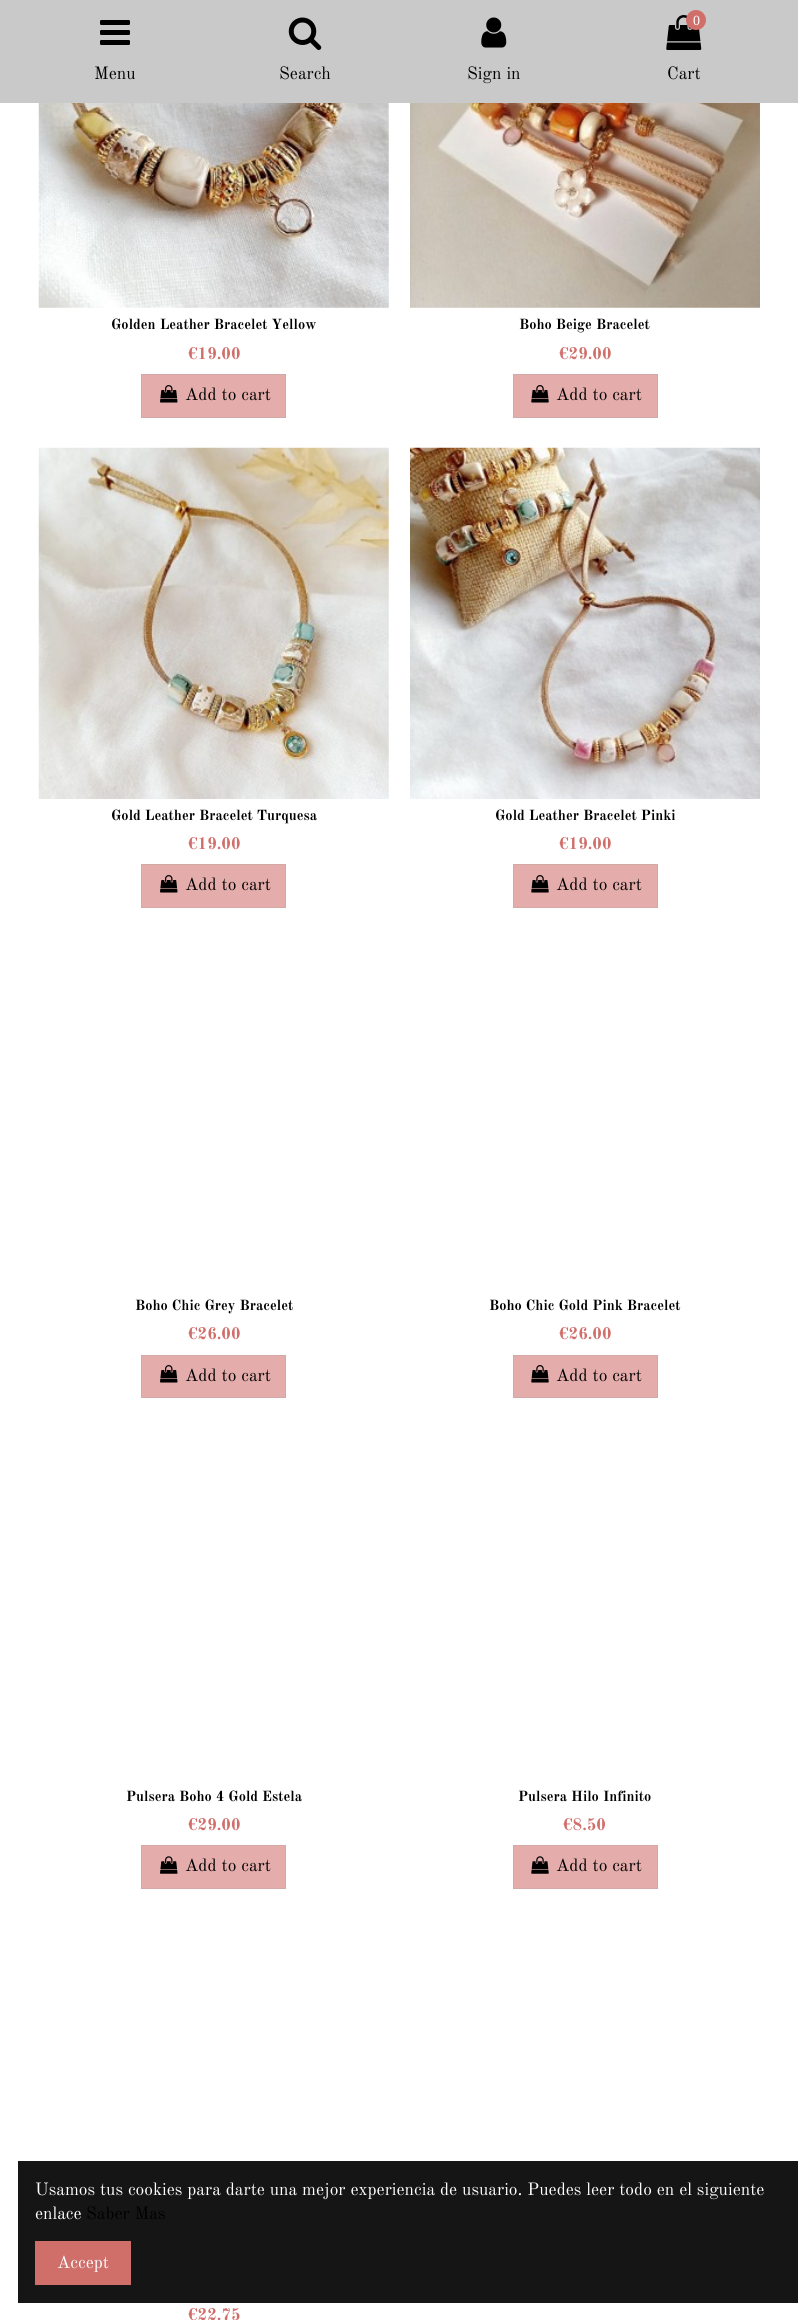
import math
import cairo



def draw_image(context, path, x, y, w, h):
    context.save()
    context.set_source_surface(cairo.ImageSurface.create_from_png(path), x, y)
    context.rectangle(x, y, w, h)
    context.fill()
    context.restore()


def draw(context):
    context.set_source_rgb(1, 1, 1)
    context.paint()
    context.set_source_rgb(201 / 255, 201 / 255, 201 / 255)
    context.rectangle(0, 0, 798, 103)
    context.fill()
    draw_image(context, "images/1.png", 100, 20, 30, 25)
    draw_image(context, "images/2.png", 288, 17, 34, 33)
    draw_image(context, "images/3.png", 481, 17, 26, 31)
    draw_image(context, "images/4.png", 666, 15, 36, 35)
    context.set_source_rgb(208 / 255, 110 / 255, 106 / 255)
    context.arc(696, 20, 10, 0, 2 * math.pi)
    context.fill()
    draw_image(context, "images/5.png", 38, 103, 351, 205)
    context.set_source_rgb(228 / 255, 172 / 255, 170 / 255)
    context.rectangle(141.5, 374.5, 144, 43)
    context.fill_preserve()
    context.set_source_rgb(211 / 255, 169 / 255, 168 / 255)
    context.set_line_width(1)
    context.stroke()
    draw_image(context, "images/6.png", 160, 385, 18, 18)
    draw_image(context, "images/7.png", 410, 103, 350, 205)
    context.set_source_rgb(228 / 255, 172 / 255, 170 / 255)
    context.rectangle(513.5, 374.5, 144, 43)
    context.fill_preserve()
    context.set_source_rgb(211 / 255, 169 / 255, 168 / 255)
    context.stroke()
    draw_image(context, "images/8.png", 531, 385, 18, 18)
    draw_image(context, "images/9.png", 38, 447, 351, 352)
    context.set_source_rgb(228 / 255, 172 / 255, 170 / 255)
    context.rectangle(141.5, 864.5, 144, 43)
    context.fill_preserve()
    context.set_source_rgb(211 / 255, 169 / 255, 168 / 255)
    context.stroke()
    draw_image(context, "images/6.png", 160, 875, 18, 18)
    draw_image(context, "images/10.png", 410, 447, 350, 352)
    context.set_source_rgb(228 / 255, 172 / 255, 170 / 255)
    context.rectangle(513.5, 864.5, 144, 43)
    context.fill_preserve()
    context.set_source_rgb(211 / 255, 169 / 255, 168 / 255)
    context.stroke()
    draw_image(context, "images/8.png", 531, 875, 18, 18)
    context.set_source_rgb(228 / 255, 172 / 255, 170 / 255)
    context.rectangle(141.5, 1355.5, 144, 42)
    context.fill_preserve()
    context.set_source_rgb(211 / 255, 169 / 255, 168 / 255)
    context.stroke()
    draw_image(context, "images/6.png", 160, 1365, 18, 18)
    context.set_source_rgb(228 / 255, 172 / 255, 170 / 255)
    context.rectangle(513.5, 1355.5, 144, 42)
    context.fill_preserve()
    context.set_source_rgb(211 / 255, 169 / 255, 168 / 255)
    context.stroke()
    draw_image(context, "images/8.png", 531, 1365, 18, 18)
    context.set_source_rgb(228 / 255, 172 / 255, 170 / 255)
    context.rectangle(141.5, 1845.5, 144, 43)
    context.fill_preserve()
    context.set_source_rgb(211 / 255, 169 / 255, 168 / 255)
    context.stroke()
    draw_image(context, "images/11.png", 160, 1856, 18, 18)
    context.set_source_rgb(228 / 255, 172 / 255, 170 / 255)
    context.rectangle(513.5, 1845.5, 144, 43)
    context.fill_preserve()
    context.set_source_rgb(211 / 255, 169 / 255, 168 / 255)
    context.stroke()
    draw_image(context, "images/12.png", 531, 1856, 18, 18)
    context.set_source_rgb(21 / 255, 21 / 255, 21 / 255)
    context.rectangle(18, 2161, 780, 142)
    context.fill()
    context.set_source_rgb(208 / 255, 110 / 255, 106 / 255)
    context.rectangle(35, 2241, 96, 44)
    context.fill()
    context.select_font_face("Old Standard TT")
    context.set_font_size(17.5)
    context.set_source_rgb(0, 0, 0)
    context.move_to(94, 79)
    context.show_text("Menu")
    context.move_to(279, 79)
    context.show_text("Search")
    context.move_to(467, 79)
    context.show_text("Sign in")
    context.select_font_face("Liberation Serif")
    context.set_font_size(14)
    context.set_source_rgb(1, 1, 1)
    context.move_to(693, 25)
    context.show_text("0")
    context.select_font_face("Old Standard TT")
    context.set_font_size(17.5)
    context.set_source_rgb(0, 0, 0)
    context.move_to(667, 79)
    context.show_text("Cart")
    context.select_font_face("Old Standard TT", cairo.FontSlant.NORMAL, cairo.FontWeight.BOLD)
    context.set_font_size(14.4)
    context.move_to(111, 329)
    context.show_text("Golden Leather Bracelet Yellow")
    context.set_font_size(16.5)
    context.set_source_rgb(208 / 255, 110 / 255, 106 / 255)
    context.move_to(188, 359)
    context.show_text("€19.00")
    context.select_font_face("Old Standard TT")
    context.set_font_size(17.5)
    context.set_source_rgb(0, 0, 0)
    context.move_to(185, 400)
    context.show_text("Add to cart")
    context.select_font_face("Old Standard TT", cairo.FontSlant.NORMAL, cairo.FontWeight.BOLD)
    context.set_font_size(14.4)
    context.move_to(519, 329)
    context.show_text("Boho Beige Bracelet")
    context.set_font_size(16.5)
    context.set_source_rgb(208 / 255, 110 / 255, 106 / 255)
    context.move_to(559, 359)
    context.show_text("€29.00")
    context.select_font_face("Old Standard TT")
    context.set_font_size(17.5)
    context.set_source_rgb(0, 0, 0)
    context.move_to(556, 400)
    context.show_text("Add to cart")
    context.select_font_face("Old Standard TT", cairo.FontSlant.NORMAL, cairo.FontWeight.BOLD)
    context.set_font_size(14.4)
    context.move_to(111, 820)
    context.show_text("Gold Leather Bracelet Turquesa")
    context.set_font_size(16.5)
    context.set_source_rgb(208 / 255, 110 / 255, 106 / 255)
    context.move_to(188, 849)
    context.show_text("€19.00")
    context.select_font_face("Old Standard TT")
    context.set_font_size(17.5)
    context.set_source_rgb(0, 0, 0)
    context.move_to(185, 890)
    context.show_text("Add to cart")
    context.select_font_face("Old Standard TT", cairo.FontSlant.NORMAL, cairo.FontWeight.BOLD)
    context.set_font_size(14.4)
    context.move_to(495, 820)
    context.show_text("Gold Leather Bracelet Pinki")
    context.set_font_size(16.5)
    context.set_source_rgb(208 / 255, 110 / 255, 106 / 255)
    context.move_to(559, 849)
    context.show_text("€19.00")
    context.select_font_face("Old Standard TT")
    context.set_font_size(17.5)
    context.set_source_rgb(0, 0, 0)
    context.move_to(556, 890)
    context.show_text("Add to cart")
    context.select_font_face("Old Standard TT", cairo.FontSlant.NORMAL, cairo.FontWeight.BOLD)
    context.set_font_size(14.4)
    context.move_to(135, 1310)
    context.show_text("Boho Chic Grey Bracelet")
    context.set_font_size(16.5)
    context.set_source_rgb(208 / 255, 110 / 255, 106 / 255)
    context.move_to(188, 1339)
    context.show_text("€26.00")
    context.select_font_face("Old Standard TT")
    context.set_font_size(17.5)
    context.set_source_rgb(0, 0, 0)
    context.move_to(185, 1381)
    context.show_text("Add to cart")
    context.select_font_face("Old Standard TT", cairo.FontSlant.NORMAL, cairo.FontWeight.BOLD)
    context.set_font_size(14.4)
    context.move_to(489, 1310)
    context.show_text("Boho Chic Gold Pink Bracelet")
    context.set_font_size(16.5)
    context.set_source_rgb(208 / 255, 110 / 255, 106 / 255)
    context.move_to(559, 1339)
    context.show_text("€26.00")
    context.select_font_face("Old Standard TT")
    context.set_font_size(17.5)
    context.set_source_rgb(0, 0, 0)
    context.move_to(556, 1381)
    context.show_text("Add to cart")
    context.select_font_face("Old Standard TT", cairo.FontSlant.NORMAL, cairo.FontWeight.BOLD)
    context.set_font_size(14.4)
    context.move_to(126, 1801)
    context.show_text("Pulsera Boho 4 Gold Estela")
    context.set_font_size(16.5)
    context.set_source_rgb(208 / 255, 110 / 255, 106 / 255)
    context.move_to(188, 1830)
    context.show_text("€29.00")
    context.select_font_face("Old Standard TT")
    context.set_font_size(17.5)
    context.set_source_rgb(0, 0, 0)
    context.move_to(185, 1871)
    context.show_text("Add to cart")
    context.select_font_face("Old Standard TT", cairo.FontSlant.NORMAL, cairo.FontWeight.BOLD)
    context.set_font_size(14.4)
    context.move_to(518, 1801)
    context.show_text("Pulsera Hilo Infinito")
    context.set_font_size(16.5)
    context.set_source_rgb(208 / 255, 110 / 255, 106 / 255)
    context.move_to(563, 1830)
    context.show_text("€8.50")
    context.select_font_face("Old Standard TT")
    context.set_font_size(17.5)
    context.set_source_rgb(0, 0, 0)
    context.move_to(556, 1871)
    context.show_text("Add to cart")
    context.select_font_face("Old Standard TT", cairo.FontSlant.NORMAL, cairo.FontWeight.BOLD)
    context.set_font_size(16.5)
    context.set_source_rgb(208 / 255, 110 / 255, 106 / 255)
    context.move_to(188, 2320)
    context.show_text("€22.75")
    context.select_font_face("Old Standard TT")
    context.set_font_size(17.5)
    context.set_source_rgb(1, 1, 1)
    context.move_to(35, 2195)
    context.show_text("Usamos tus cookies para darte una mejor experiencia de usuario. Puedes leer todo en el siguiente")
    context.move_to(35, 2219)
    context.show_text("enlace")
    context.set_source_rgb(0, 0, 0)
    context.move_to(86, 2219)
    context.show_text("Saber Mas")
    context.set_source_rgb(1, 1, 1)
    context.move_to(57, 2268)
    context.show_text("Accept")


surface = cairo.ImageSurface(cairo.Format.RGB24, 798, 2320)
context = cairo.Context(surface)
options = cairo.FontOptions()
options.set_hint_metrics(cairo.HintMetrics.OFF)
options.set_hint_style(cairo.HintStyle.NONE)
context.set_font_options(options)
context.set_miter_limit(4)
draw(context)
surface.write_to_png("out.png")
